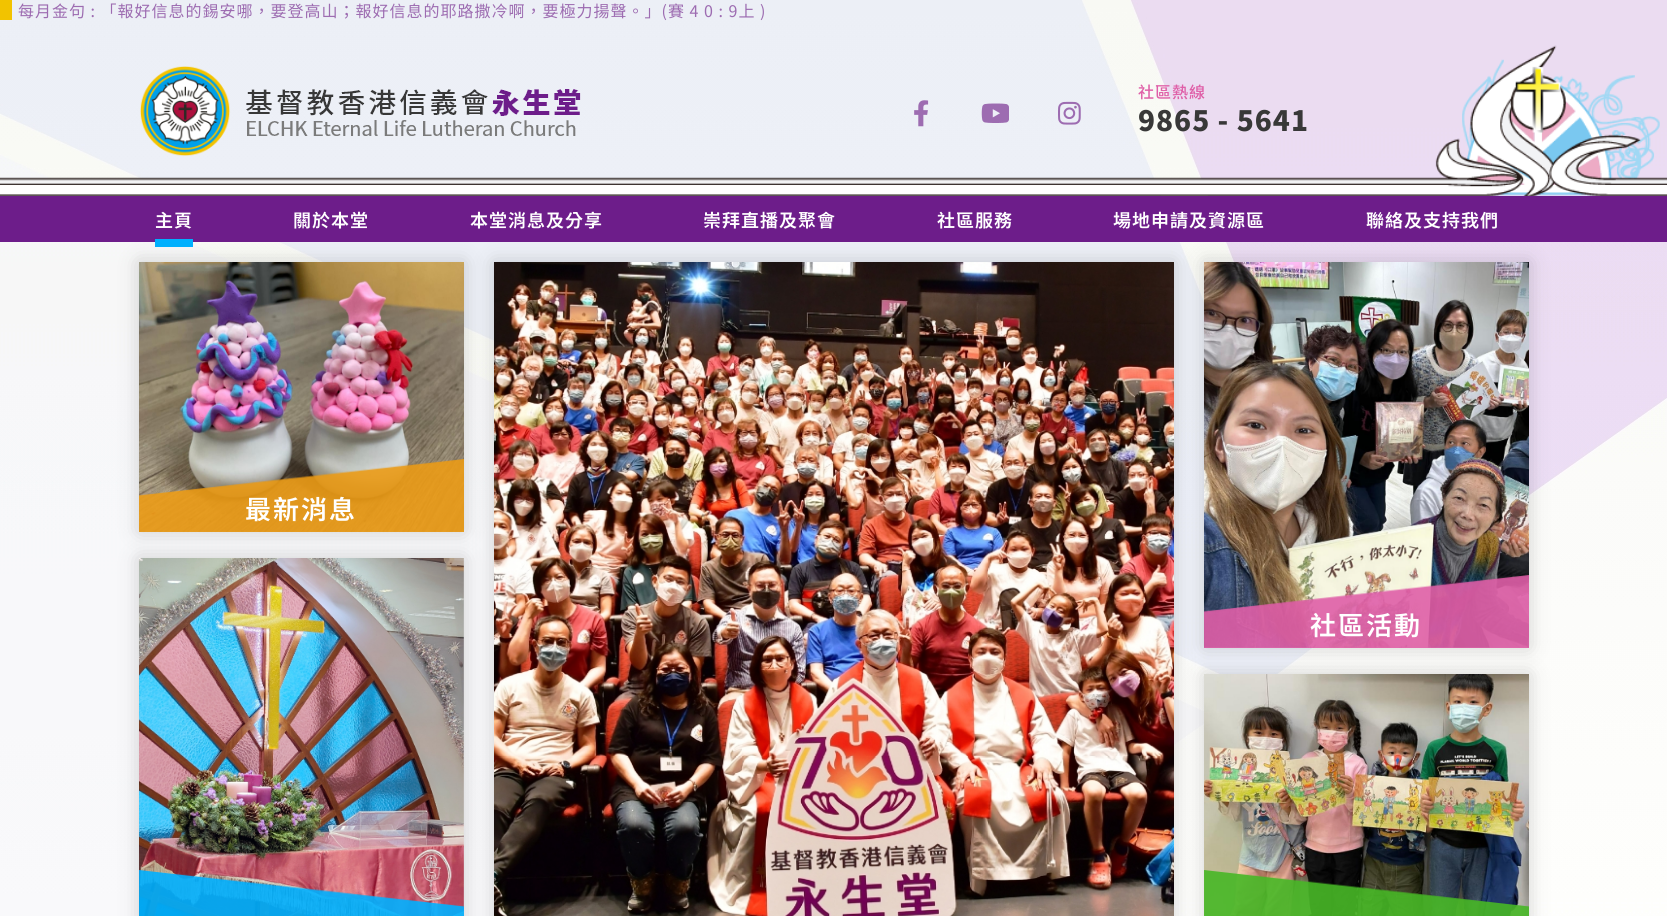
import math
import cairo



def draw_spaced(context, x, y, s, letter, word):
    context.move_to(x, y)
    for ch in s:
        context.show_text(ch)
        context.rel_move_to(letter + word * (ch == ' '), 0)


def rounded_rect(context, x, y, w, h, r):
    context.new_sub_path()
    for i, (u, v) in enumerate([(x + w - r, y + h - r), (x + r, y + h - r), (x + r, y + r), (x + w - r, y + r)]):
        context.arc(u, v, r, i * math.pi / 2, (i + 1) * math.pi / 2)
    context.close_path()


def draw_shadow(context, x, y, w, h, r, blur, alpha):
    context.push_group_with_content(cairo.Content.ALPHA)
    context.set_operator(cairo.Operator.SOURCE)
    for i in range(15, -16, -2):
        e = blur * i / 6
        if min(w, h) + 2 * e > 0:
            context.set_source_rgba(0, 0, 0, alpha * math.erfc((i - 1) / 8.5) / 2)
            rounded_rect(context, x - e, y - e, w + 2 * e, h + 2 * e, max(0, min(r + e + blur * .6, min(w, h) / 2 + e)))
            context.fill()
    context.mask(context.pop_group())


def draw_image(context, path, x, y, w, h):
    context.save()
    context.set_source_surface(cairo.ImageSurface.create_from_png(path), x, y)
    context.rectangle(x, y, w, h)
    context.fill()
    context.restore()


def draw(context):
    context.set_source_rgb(1, 1, 1)
    context.paint()
    draw_image(context, "images/1.png", 0, 0, 1667, 916)
    context.set_source_rgb(242 / 255, 195 / 255, 0)
    context.rectangle(0, 0, 12, 20)
    context.fill()
    draw_image(context, "images/2.png", 0, 45, 1667, 151)
    draw_image(context, "images/3.png", 140, 66, 441, 90)
    draw_image(context, "images/4.png", 914, 100, 15, 27)
    draw_image(context, "images/5.png", 981, 103, 28, 20)
    draw_image(context, "images/6.png", 1058, 101, 23, 24)
    context.set_source_rgb(109 / 255, 29 / 255, 138 / 255)
    context.rectangle(0, 196, 1667, 46)
    context.fill()
    context.set_source_rgb(0, 177 / 255, 1)
    context.rectangle(155, 239, 38, 8)
    context.fill()
    context.set_source_rgb(0, 0, 0)
    draw_shadow(context, 139, 262, 325, 270, 0, 10, 0.17)
    draw_image(context, "images/7.png", 139, 262, 325, 270)
    draw_image(context, "images/8.png", 139, 459, 325, 73)
    draw_shadow(context, 139, 558, 325, 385, 0, 10, 0.17)
    draw_image(context, "images/9.png", 139, 558, 325, 358)
    draw_image(context, "images/10.png", 139, 870, 325, 46)
    draw_shadow(context, 494, 262, 680, 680, 0, 10, 0.17)
    draw_image(context, "images/11.png", 494, 262, 680, 654)
    draw_shadow(context, 1204, 262, 325, 386, 0, 10, 0.17)
    draw_image(context, "images/12.png", 1204, 262, 325, 386)
    draw_image(context, "images/13.png", 1204, 575, 325, 73)
    draw_shadow(context, 1204, 674, 325, 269, 0, 10, 0.17)
    draw_image(context, "images/14.png", 1204, 674, 325, 242)
    draw_image(context, "images/15.png", 1204, 870, 325, 46)
    context.select_font_face("Noto Sans TC")
    context.set_font_size(16)
    context.set_source_rgb(157 / 255, 108 / 255, 177 / 255)
    draw_spaced(context, 18, 17, "每月金句 : 「報好信息的錫安哪，要登高山；報好信息的耶路撒冷啊，要極力揚聲。」(賽 4 0 : 9上 )", 1, 0)
    context.select_font_face("Noto Sans TC Medium")
    context.set_source_rgb(223 / 255, 95 / 255, 168 / 255)
    draw_spaced(context, 1138, 98, "社區熱線", 1, 0)
    context.select_font_face("Noto Sans TC Black")
    context.set_font_size(28)
    context.set_source_rgb(56 / 255, 56 / 255, 56 / 255)
    draw_spaced(context, 1138, 131, "9865 - 5641", 1, 0)
    context.select_font_face("Noto Sans TC SemiBold")
    context.set_font_size(18)
    context.set_source_rgb(1, 1, 1)
    draw_spaced(context, 155, 227, "主頁", 1, 0)
    draw_spaced(context, 293, 227, "關於本堂", 1, 0)
    draw_spaced(context, 470, 227, "本堂消息及分享", 1, 0)
    draw_spaced(context, 703, 227, "崇拜直播及聚會", 1, 0)
    draw_spaced(context, 937, 227, "社區服務", 1, 0)
    draw_spaced(context, 1113, 227, "場地申請及資源區", 1, 0)
    draw_spaced(context, 1366, 227, "聯絡及支持我們", 1, 0)
    context.set_font_size(26)
    draw_spaced(context, 245, 519, "最新消息", 2, 0)
    draw_spaced(context, 1310, 635, "社區活動", 2, 0)


surface = cairo.ImageSurface(cairo.Format.RGB24, 1667, 916)
context = cairo.Context(surface)
options = cairo.FontOptions()
options.set_hint_metrics(cairo.HintMetrics.OFF)
options.set_hint_style(cairo.HintStyle.NONE)
context.set_font_options(options)
context.set_miter_limit(4)
draw(context)
surface.write_to_png("out.png")
